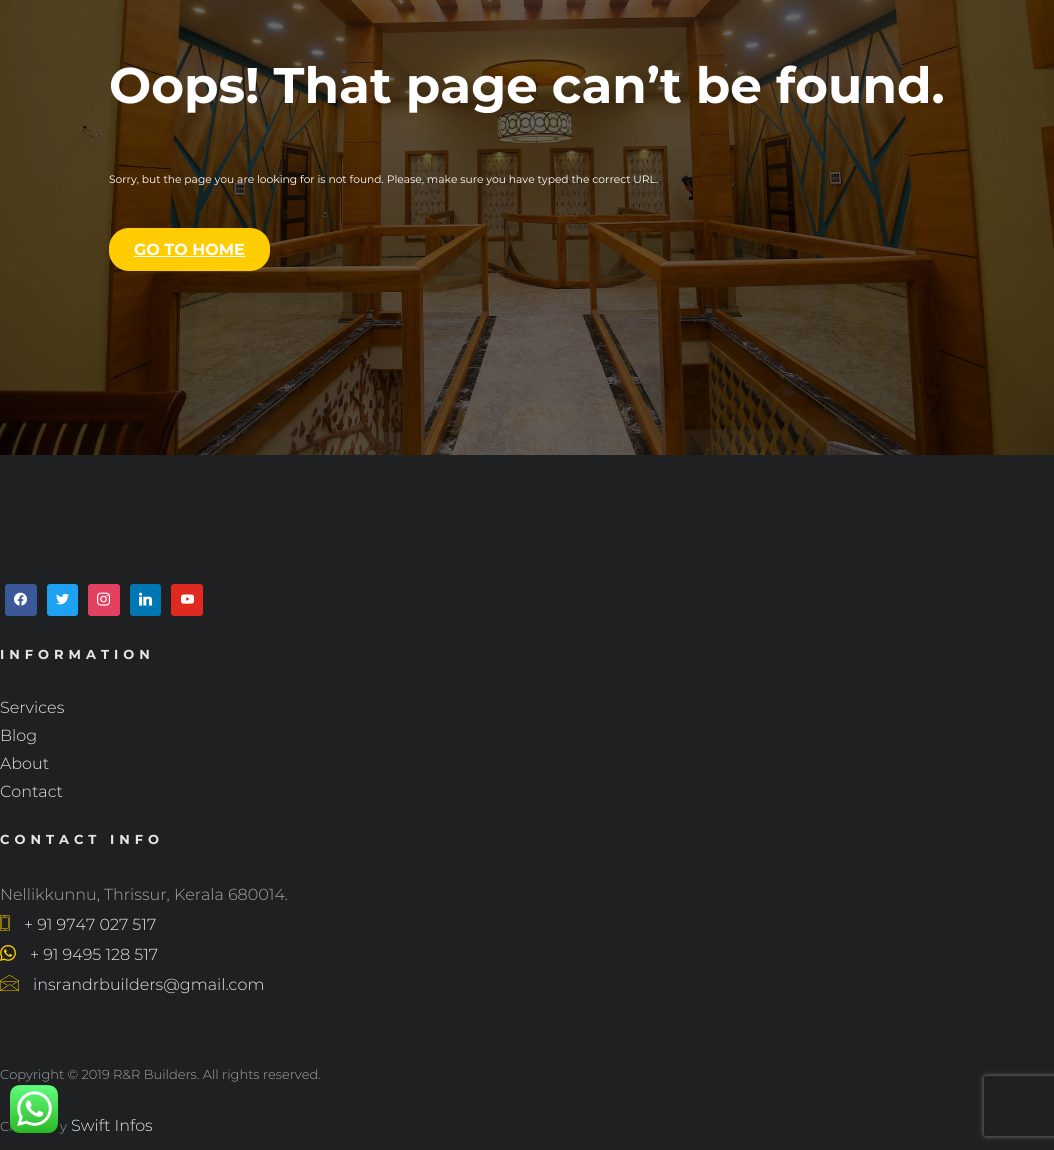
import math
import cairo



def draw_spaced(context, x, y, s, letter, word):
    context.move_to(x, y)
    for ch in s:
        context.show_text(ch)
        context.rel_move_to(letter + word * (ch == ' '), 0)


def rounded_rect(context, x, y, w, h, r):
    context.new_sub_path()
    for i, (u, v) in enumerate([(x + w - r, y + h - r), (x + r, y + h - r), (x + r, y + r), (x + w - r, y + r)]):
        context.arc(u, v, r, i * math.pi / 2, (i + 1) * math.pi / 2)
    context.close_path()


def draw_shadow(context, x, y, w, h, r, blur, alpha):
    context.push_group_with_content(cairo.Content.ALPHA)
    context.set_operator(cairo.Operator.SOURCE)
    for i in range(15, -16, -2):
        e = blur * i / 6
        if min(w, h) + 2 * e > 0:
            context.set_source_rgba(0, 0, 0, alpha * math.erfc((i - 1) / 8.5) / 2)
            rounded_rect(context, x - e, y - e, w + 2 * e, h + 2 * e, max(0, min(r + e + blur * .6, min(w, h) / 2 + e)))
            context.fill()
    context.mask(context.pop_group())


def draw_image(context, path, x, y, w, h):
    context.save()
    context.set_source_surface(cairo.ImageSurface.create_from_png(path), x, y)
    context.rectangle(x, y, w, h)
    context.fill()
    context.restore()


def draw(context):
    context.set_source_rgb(30 / 255, 32 / 255, 34 / 255)
    context.paint()
    draw_image(context, "images/1.png", 0, 0, 1054, 455)
    context.set_source_rgb(1, 205 / 255, 1 / 255)
    rounded_rect(context, 109, 228, 161, 43, 20)
    context.fill()
    context.set_source_rgb(1, 1, 1)
    context.rectangle(134, 256, 111, 1)
    context.fill()
    context.set_source_rgb(59 / 255, 89 / 255, 152 / 255)
    rounded_rect(context, 5, 584, 32, 32, 3)
    context.fill()
    draw_image(context, "images/2.png", 14, 592, 13, 14)
    context.set_source_rgb(29 / 255, 161 / 255, 242 / 255)
    rounded_rect(context, 47, 584, 31, 32, 3)
    context.fill()
    draw_image(context, "images/3.png", 56, 593, 13, 12)
    context.set_source_rgb(228 / 255, 64 / 255, 95 / 255)
    rounded_rect(context, 88, 584, 32, 32, 3)
    context.fill()
    draw_image(context, "images/4.png", 97, 592, 13, 14)
    context.set_source_rgb(0, 119 / 255, 181 / 255)
    rounded_rect(context, 130, 584, 31, 32, 3)
    context.fill()
    draw_image(context, "images/5.png", 139, 592, 14, 14)
    context.set_source_rgb(224 / 255, 42 / 255, 32 / 255)
    rounded_rect(context, 171, 584, 32, 32, 3)
    context.fill()
    draw_image(context, "images/6.png", 181, 594, 13, 10)
    draw_image(context, "images/7.png", 0, 915, 10, 16)
    draw_image(context, "images/8.png", 0, 945, 16, 16)
    draw_image(context, "images/9.png", 0, 975, 19, 16)
    context.save()
    context.set_fill_rule(cairo.FillRule.EVEN_ODD)
    context.new_path()
    context.move_to(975, 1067)
    context.line_to(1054, 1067)
    context.line_to(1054, 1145)
    context.line_to(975, 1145)
    context.close_path()
    context.move_to(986, 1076)
    context.line_to(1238, 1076)
    context.curve_to(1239, 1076, 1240, 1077, 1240, 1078)
    context.line_to(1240, 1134)
    context.curve_to(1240, 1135, 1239, 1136, 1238, 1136)
    context.line_to(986, 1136)
    context.curve_to(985, 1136, 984, 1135, 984, 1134)
    context.line_to(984, 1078)
    context.curve_to(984, 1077, 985, 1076, 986, 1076)
    context.close_path()
    context.clip()
    context.set_source_rgb(128 / 255, 128 / 255, 128 / 255)
    draw_shadow(context, 984, 1076, 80, 60, 2, 2.5, 1)
    context.restore()
    context.select_font_face("Montserrat", cairo.FontSlant.NORMAL, cairo.FontWeight.BOLD)
    context.set_font_size(50)
    context.set_source_rgb(1, 1, 1)
    context.move_to(109, 103)
    context.show_text("Oops! That page can’t be found.")
    context.select_font_face("Montserrat")
    context.set_font_size(10.72)
    context.move_to(109, 183)
    context.show_text("Sorry, but the page you are looking for is not found. Please, make sure you have typed the correct URL.")
    context.select_font_face("Montserrat", cairo.FontSlant.NORMAL, cairo.FontWeight.BOLD)
    context.set_font_size(16)
    context.move_to(134, 255)
    context.show_text("GO TO HOME")
    context.set_font_size(13)
    context.set_source_rgb(230 / 255, 230 / 255, 230 / 255)
    draw_spaced(context, 0, 659, "INFORMATION", 5, 0)
    context.select_font_face("Montserrat Light")
    context.set_font_size(16)
    context.move_to(0, 713)
    context.show_text("Services")
    context.move_to(0, 741)
    context.show_text("Blog")
    context.move_to(0, 769)
    context.show_text("About")
    context.move_to(0, 797)
    context.show_text("Contact")
    context.select_font_face("Montserrat", cairo.FontSlant.NORMAL, cairo.FontWeight.BOLD)
    context.set_font_size(13)
    draw_spaced(context, 0, 844, "CONTACT INFO", 5, 0)
    context.select_font_face("Montserrat Light")
    context.set_font_size(16)
    context.set_source_rgb(165 / 255, 166 / 255, 167 / 255)
    context.move_to(0, 900)
    context.show_text("Nellikkunnu, Thrissur, Kerala 680014.")
    context.set_source_rgb(230 / 255, 230 / 255, 230 / 255)
    context.move_to(24, 930)
    context.show_text("+ 91 9747 027 517")
    context.move_to(30, 960)
    context.show_text("+ 91 9495 128 517")
    context.move_to(33, 990)
    context.show_text("insrandrbuilders@gmail.com")
    context.set_font_size(13)
    context.set_source_rgb(165 / 255, 166 / 255, 167 / 255)
    context.move_to(0, 1079)
    context.show_text("Copyright © 2019 R&R Builders. All rights reserved.")
    context.move_to(0, 1131)
    context.show_text("Cr")
    context.move_to(60, 1131)
    context.show_text("y")
    context.set_font_size(16)
    context.set_source_rgb(230 / 255, 230 / 255, 230 / 255)
    context.move_to(71, 1131)
    context.show_text("Swift Infos")
    draw_image(context, "images/10.png", 10, 1085, 48, 48)


surface = cairo.ImageSurface(cairo.Format.RGB24, 1054, 1150)
context = cairo.Context(surface)
options = cairo.FontOptions()
options.set_hint_metrics(cairo.HintMetrics.OFF)
options.set_hint_style(cairo.HintStyle.NONE)
context.set_font_options(options)
context.set_miter_limit(4)
draw(context)
surface.write_to_png("out.png")
